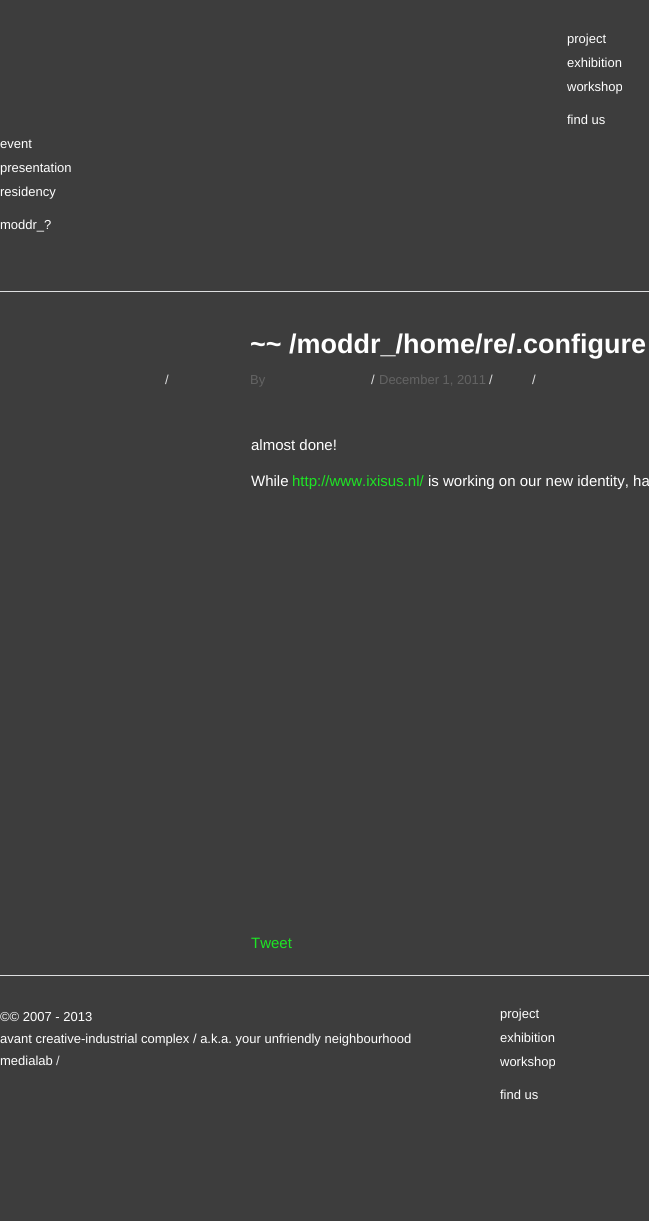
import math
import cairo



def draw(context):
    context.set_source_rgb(61 / 255, 61 / 255, 61 / 255)
    context.paint()
    context.set_source_rgb(222 / 255, 223 / 255, 224 / 255)
    context.rectangle(0, 291, 649, 1)
    context.fill()
    context.rectangle(0, 975, 649, 1)
    context.fill()
    context.select_font_face("Liberation Sans")
    context.set_font_size(13)
    context.set_source_rgb(1, 1, 1)
    context.move_to(567, 43)
    context.show_text("project")
    context.move_to(567, 67)
    context.show_text("exhibition")
    context.move_to(567, 91)
    context.show_text("workshop")
    context.move_to(567, 124)
    context.show_text("find us")
    context.move_to(0, 148)
    context.show_text("event")
    context.move_to(0, 172)
    context.show_text("presentation")
    context.move_to(0, 196)
    context.show_text("residency")
    context.move_to(0, 229)
    context.show_text("moddr_?")
    context.select_font_face("Liberation Sans", cairo.FontSlant.NORMAL, cairo.FontWeight.BOLD)
    context.set_font_size(27)
    context.move_to(250, 353)
    context.show_text("~~ /moddr_/home/re/.configure")
    context.select_font_face("Liberation Sans")
    context.set_font_size(13)
    context.set_source_rgb(222 / 255, 223 / 255, 224 / 255)
    context.move_to(165, 384)
    context.show_text("/")
    context.set_source_rgb(99 / 255, 99 / 255, 99 / 255)
    context.move_to(250, 384)
    context.show_text("By")
    context.set_source_rgb(222 / 255, 223 / 255, 224 / 255)
    context.move_to(371, 384)
    context.show_text("/")
    context.set_source_rgb(99 / 255, 99 / 255, 99 / 255)
    context.move_to(379, 384)
    context.show_text("December 1, 2011")
    context.set_source_rgb(222 / 255, 223 / 255, 224 / 255)
    context.move_to(489, 384)
    context.show_text("/")
    context.move_to(532, 384)
    context.show_text("/")
    context.set_font_size(15)
    context.set_source_rgb(1, 1, 1)
    context.move_to(251, 450)
    context.show_text("almost done!")
    context.move_to(251, 486)
    context.show_text("While")
    context.set_source_rgb(29 / 255, 229 / 255, 36 / 255)
    context.move_to(292, 486)
    context.show_text("http://www.ixisus.nl/")
    context.set_source_rgb(1, 1, 1)
    context.move_to(428, 486)
    context.show_text("is working on our new identity, ha")
    context.set_source_rgb(29 / 255, 229 / 255, 36 / 255)
    context.move_to(251, 948)
    context.show_text("Tweet")
    context.set_font_size(13)
    context.set_source_rgb(1, 1, 1)
    context.move_to(0, 1021)
    context.show_text("©© 2007 - 2013")
    context.move_to(0, 1043)
    context.show_text("avant creative-industrial complex / a.k.a. your unfriendly neighbourhood")
    context.move_to(0, 1065)
    context.show_text("medialab")
    context.set_source_rgb(222 / 255, 223 / 255, 224 / 255)
    context.move_to(56, 1065)
    context.show_text("/")
    context.set_source_rgb(1, 1, 1)
    context.move_to(500, 1018)
    context.show_text("project")
    context.move_to(500, 1042)
    context.show_text("exhibition")
    context.move_to(500, 1066)
    context.show_text("workshop")
    context.move_to(500, 1099)
    context.show_text("find us")


surface = cairo.ImageSurface(cairo.Format.RGB24, 649, 1221)
context = cairo.Context(surface)
options = cairo.FontOptions()
options.set_hint_metrics(cairo.HintMetrics.OFF)
options.set_hint_style(cairo.HintStyle.NONE)
context.set_font_options(options)
context.set_miter_limit(4)
draw(context)
surface.write_to_png("out.png")
